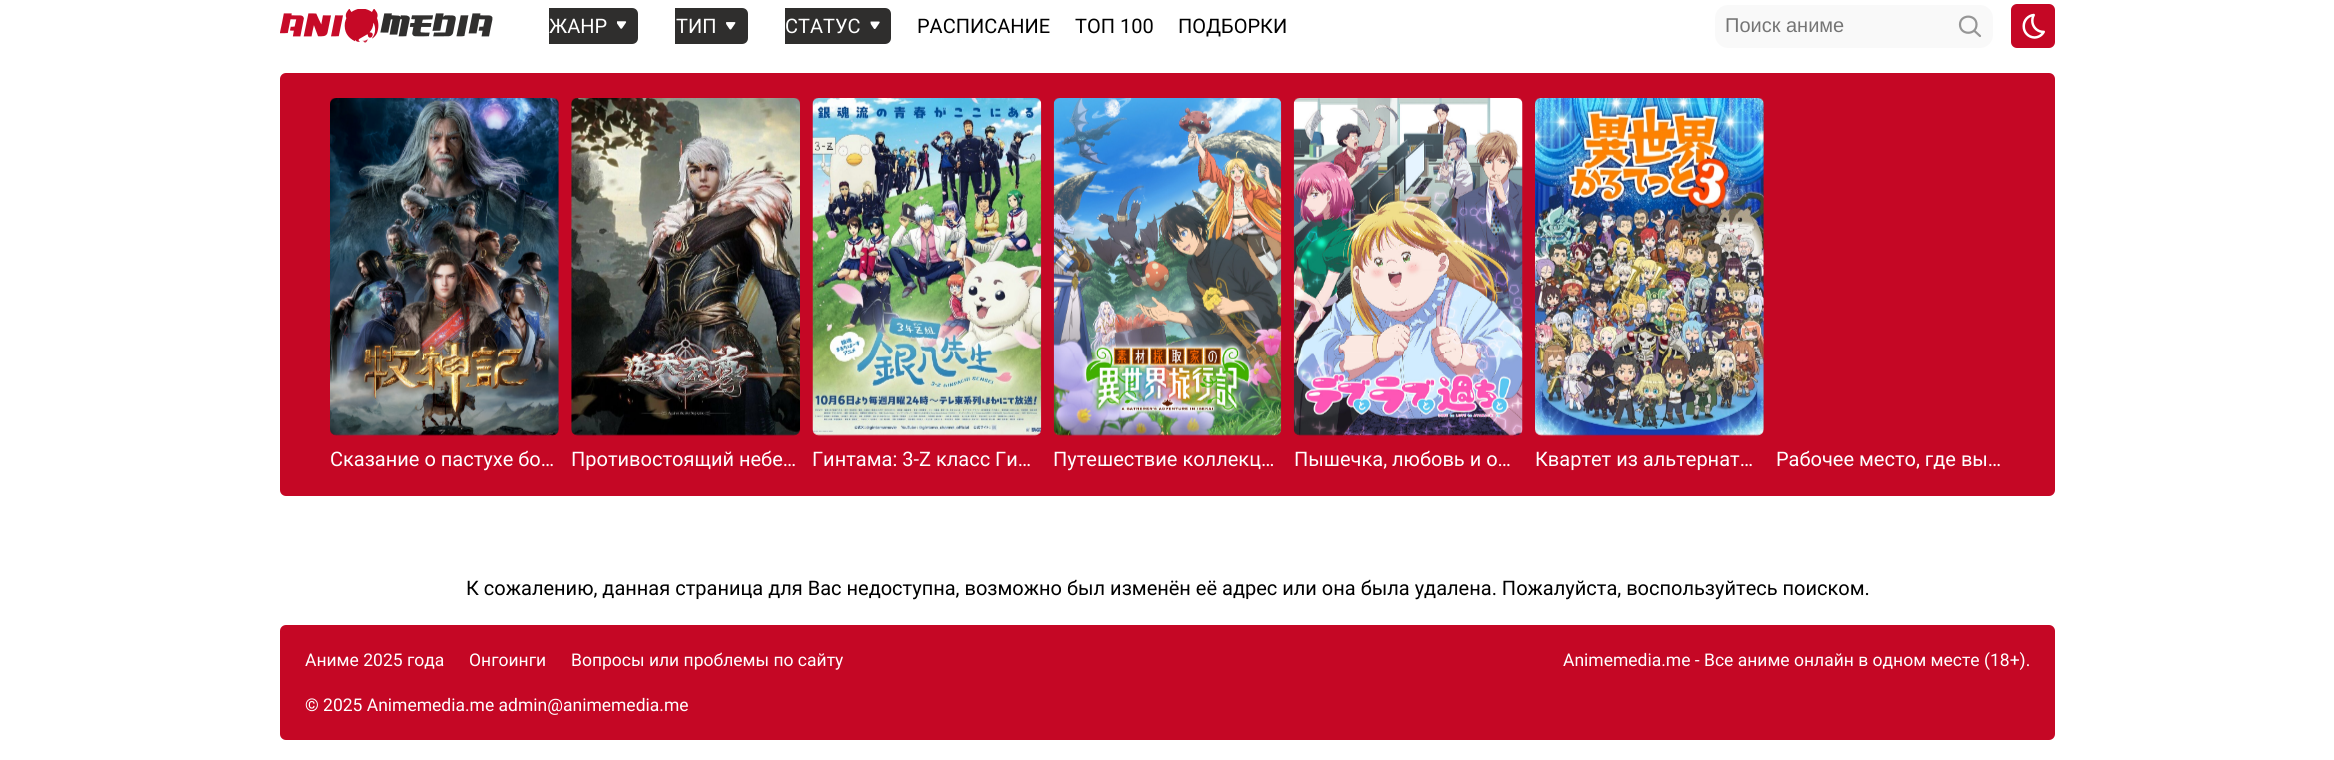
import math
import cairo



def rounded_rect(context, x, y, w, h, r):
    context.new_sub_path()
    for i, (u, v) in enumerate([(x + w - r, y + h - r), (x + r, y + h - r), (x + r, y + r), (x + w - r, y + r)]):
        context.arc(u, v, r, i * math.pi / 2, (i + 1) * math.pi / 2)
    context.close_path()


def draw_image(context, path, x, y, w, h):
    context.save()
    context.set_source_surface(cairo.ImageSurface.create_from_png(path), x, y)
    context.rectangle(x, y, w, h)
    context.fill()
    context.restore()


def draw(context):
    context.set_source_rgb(1, 1, 1)
    context.paint()
    draw_image(context, "images/1.png", 280, 9, 213, 34)
    context.set_source_rgb(47 / 255, 46 / 255, 45 / 255)
    context.new_path()
    context.move_to(549, 8)
    context.line_to(632, 8)
    context.curve_to(635.5, 8, 638, 10.5, 638, 14)
    context.line_to(638, 38)
    context.curve_to(638, 41.5, 635.5, 44, 632, 44)
    context.line_to(549, 44)
    context.close_path()
    context.fill()
    draw_image(context, "images/2.png", 617, 21, 10, 8)
    context.new_path()
    context.move_to(675, 8)
    context.line_to(742, 8)
    context.curve_to(745.5, 8, 748, 10.5, 748, 14)
    context.line_to(748, 38)
    context.curve_to(748, 41.5, 745.5, 44, 742, 44)
    context.line_to(675, 44)
    context.close_path()
    context.fill()
    draw_image(context, "images/3.png", 726, 22, 10, 8)
    context.new_path()
    context.move_to(785, 8)
    context.line_to(885, 8)
    context.curve_to(888.5, 8, 891, 10.5, 891, 14)
    context.line_to(891, 38)
    context.curve_to(891, 41.5, 888.5, 44, 885, 44)
    context.line_to(785, 44)
    context.close_path()
    context.fill()
    draw_image(context, "images/4.png", 870, 21, 10, 8)
    context.set_source_rgb(249 / 255, 249 / 255, 249 / 255)
    rounded_rect(context, 1715, 5, 278, 43, 13)
    context.fill()
    context.new_path()
    context.move_to(1974, 30.5)
    context.line_to(1980, 36)
    context.move_to(1976.5, 24.5)
    context.curve_to(1976.5, 35.5, 1960, 35.5, 1960, 24.5)
    context.curve_to(1960, 14, 1976.5, 14, 1976.5, 24.5)
    context.close_path()
    context.set_source_rgb(150 / 255, 150 / 255, 150 / 255)
    context.set_line_width(2.2)
    context.set_line_cap(cairo.LineCap.ROUND)
    context.set_line_join(cairo.LineJoin.ROUND)
    context.stroke()
    context.set_source_rgb(197 / 255, 7 / 255, 37 / 255)
    rounded_rect(context, 2011, 4, 44, 44, 6)
    context.fill()
    draw_image(context, "images/5.png", 2022, 13, 23, 26)
    rounded_rect(context, 280, 73, 1775, 423, 6)
    context.fill()
    draw_image(context, "images/6.png", 330, 98, 229, 338)
    draw_image(context, "images/7.png", 571, 98, 229, 338)
    draw_image(context, "images/8.png", 812, 98, 230, 338)
    draw_image(context, "images/9.png", 1053, 98, 229, 338)
    draw_image(context, "images/10.png", 1293, 98, 230, 338)
    draw_image(context, "images/11.png", 1535, 98, 229, 338)
    rounded_rect(context, 280, 625, 1775, 115, 6)
    context.fill()
    context.select_font_face("Roboto")
    context.set_font_size(20)
    context.set_source_rgb(1, 1, 1)
    context.move_to(549, 33)
    context.show_text("ЖАНР")
    context.move_to(676, 33)
    context.show_text("ТИП")
    context.move_to(785, 33)
    context.show_text("СТАТУС")
    context.set_source_rgb(0, 0, 0)
    context.move_to(917, 33)
    context.show_text("РАСПИСАНИЕ")
    context.move_to(1075, 33)
    context.show_text("ТОП 100")
    context.move_to(1178, 33)
    context.show_text("ПОДБОРКИ")
    context.select_font_face("Liberation Sans")
    context.set_source_rgb(117 / 255, 117 / 255, 117 / 255)
    context.move_to(1725, 32)
    context.show_text("Поиск аниме")
    context.select_font_face("Roboto")
    context.set_source_rgb(1, 1, 1)
    context.move_to(330, 466)
    context.show_text("Сказание о пастухе бо…")
    context.move_to(571, 466)
    context.show_text("Противостоящий небе…")
    context.move_to(812, 466)
    context.show_text("Гинтама: 3-Z класс Ги…")
    context.move_to(1053, 466)
    context.show_text("Путешествие коллекц…")
    context.move_to(1294, 466)
    context.show_text("Пышечка, любовь и о…")
    context.move_to(1535, 466)
    context.show_text("Квартет из альтернат…")
    context.move_to(1776, 466)
    context.show_text("Рабочее место, где вы…")
    context.set_source_rgb(0, 0, 0)
    context.move_to(466, 595)
    context.show_text("К сожалению, данная страница для Вас недоступна, возможно был изменён её адрес или она была удалена. Пожалуйста, воспользуйтесь поиском.")
    context.set_font_size(17.5)
    context.set_source_rgb(1, 1, 1)
    context.move_to(305, 666)
    context.show_text("Аниме 2025 года")
    context.move_to(469, 666)
    context.show_text("Онгоинги")
    context.move_to(571, 666)
    context.show_text("Вопросы или проблемы по сайту")
    context.move_to(1563, 666)
    context.show_text("Animemedia.me - Все аниме онлайн в одном месте (18+).")
    context.move_to(305, 711)
    context.show_text("© 2025 Animemedia.me admin@animemedia.me")


surface = cairo.ImageSurface(cairo.Format.RGB24, 2334, 760)
context = cairo.Context(surface)
options = cairo.FontOptions()
options.set_hint_metrics(cairo.HintMetrics.OFF)
options.set_hint_style(cairo.HintStyle.NONE)
context.set_font_options(options)
context.set_miter_limit(4)
draw(context)
surface.write_to_png("out.png")
